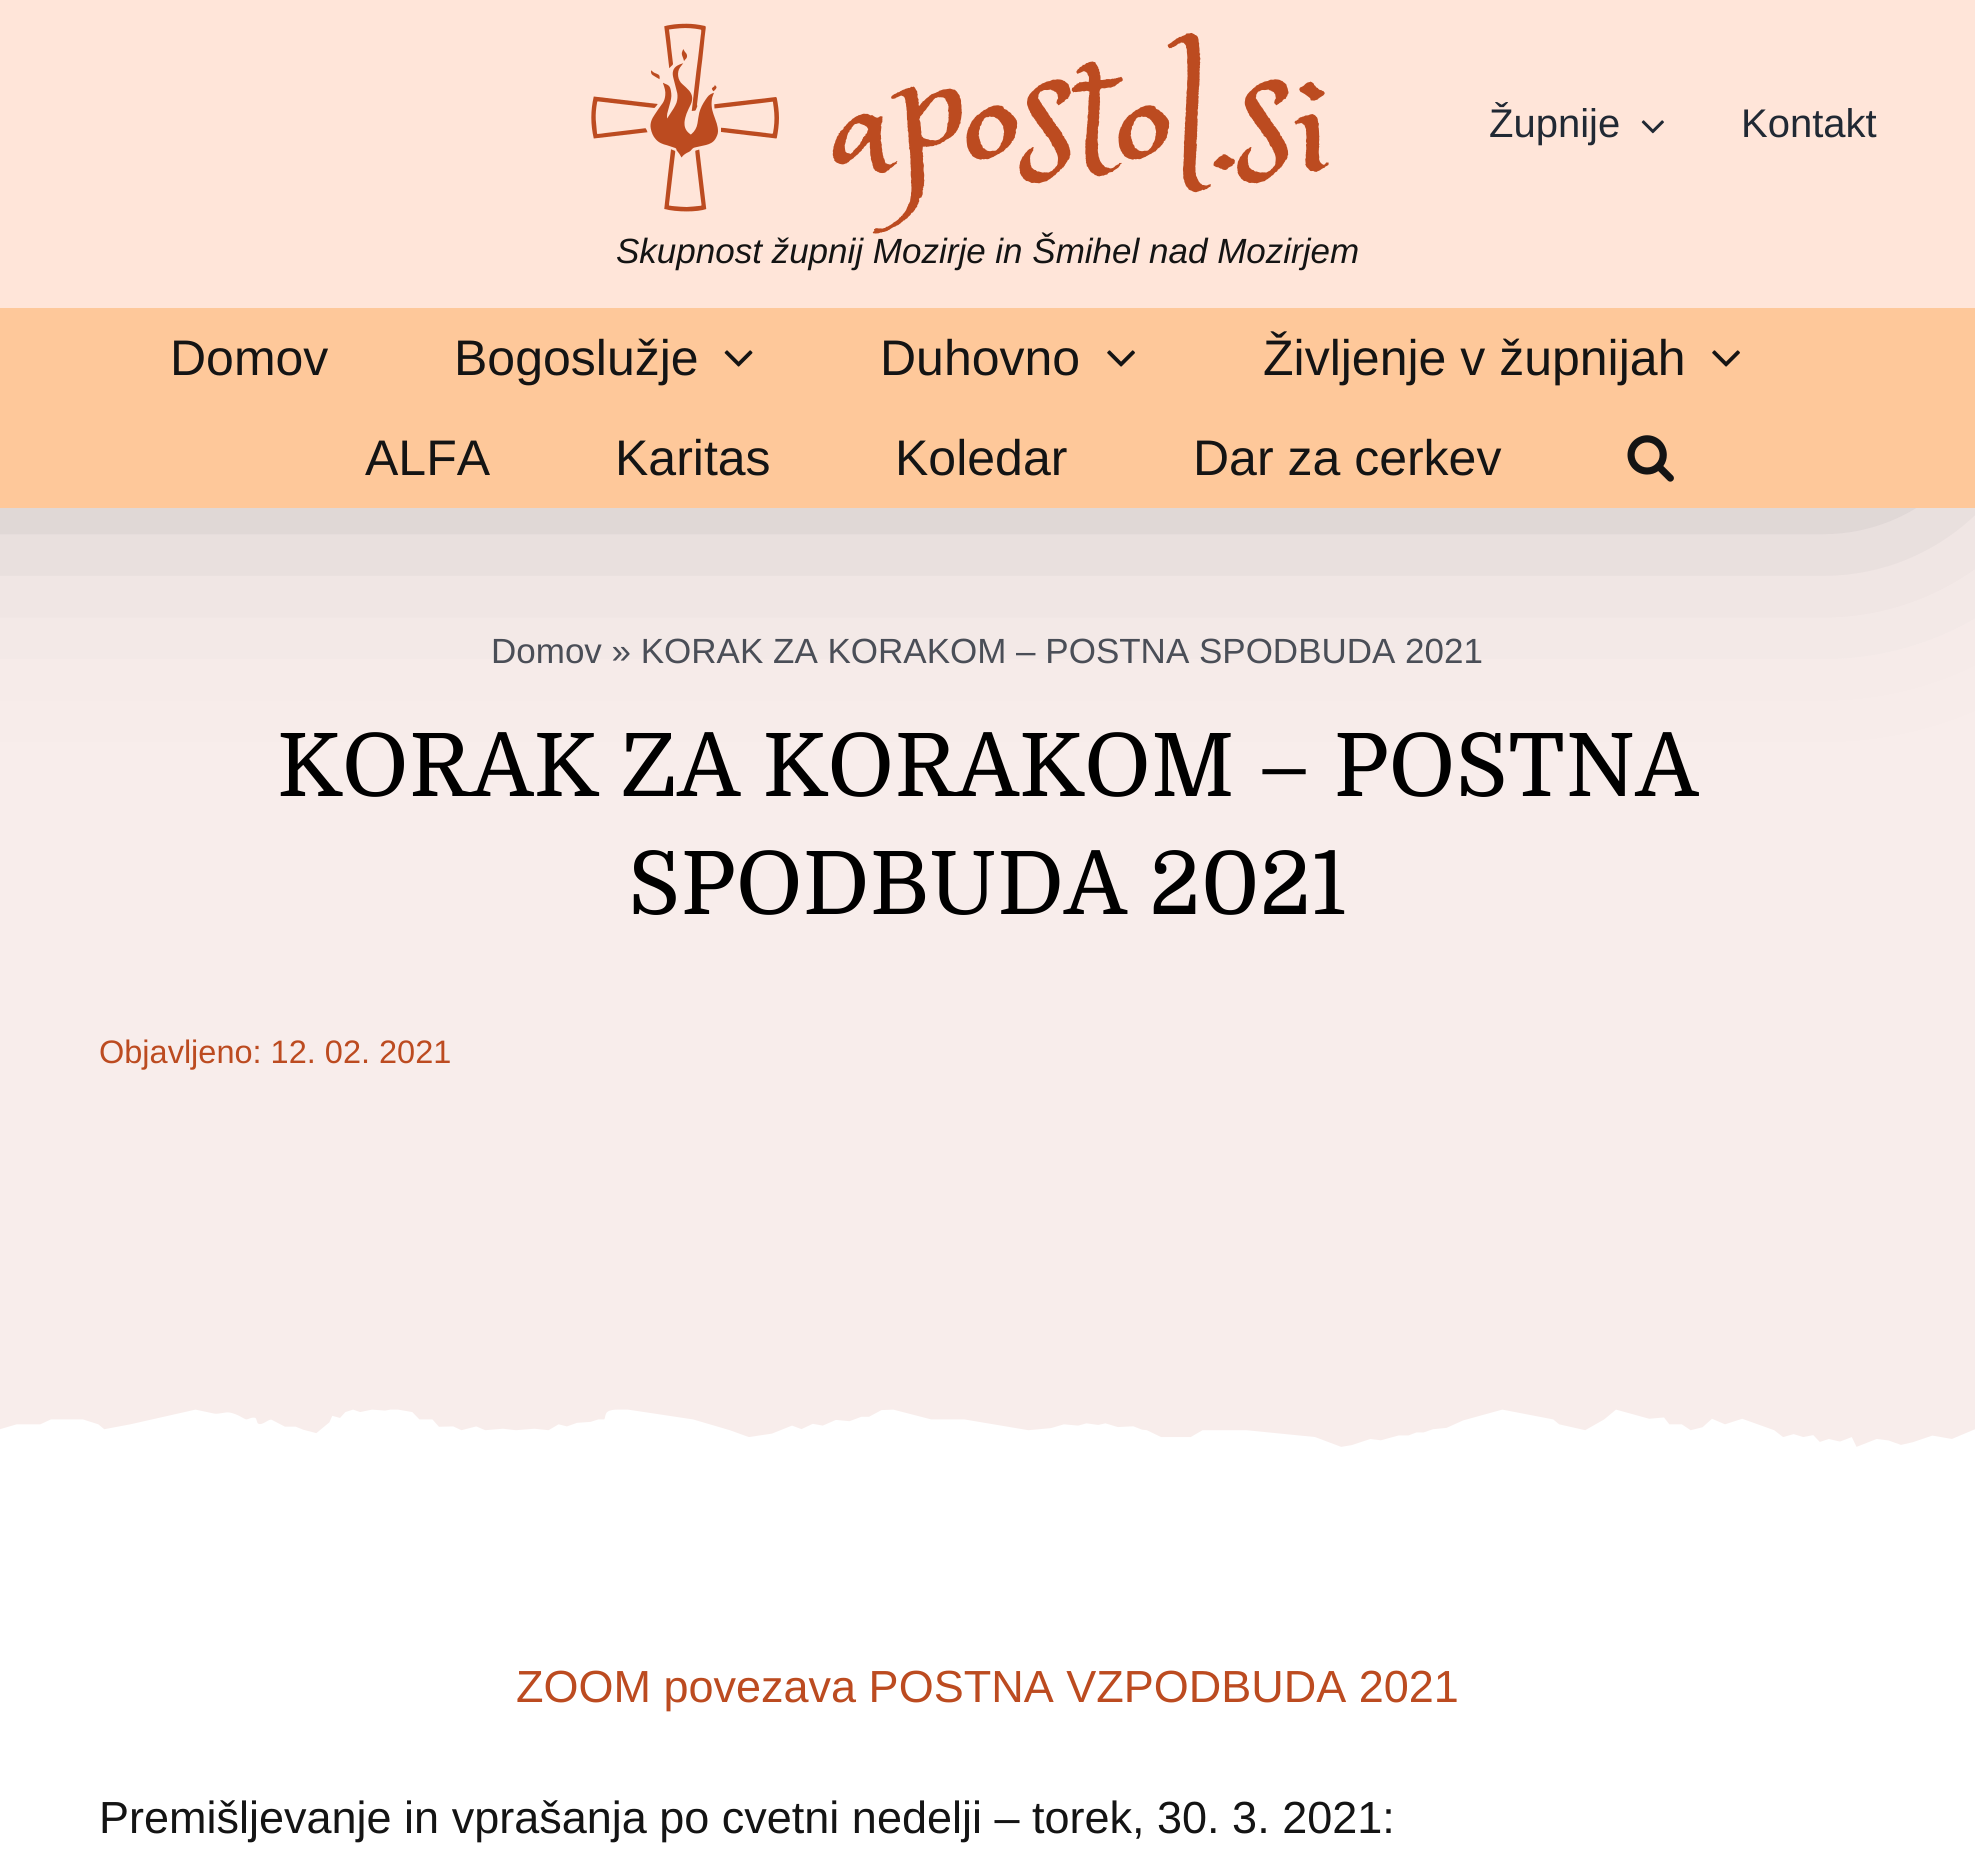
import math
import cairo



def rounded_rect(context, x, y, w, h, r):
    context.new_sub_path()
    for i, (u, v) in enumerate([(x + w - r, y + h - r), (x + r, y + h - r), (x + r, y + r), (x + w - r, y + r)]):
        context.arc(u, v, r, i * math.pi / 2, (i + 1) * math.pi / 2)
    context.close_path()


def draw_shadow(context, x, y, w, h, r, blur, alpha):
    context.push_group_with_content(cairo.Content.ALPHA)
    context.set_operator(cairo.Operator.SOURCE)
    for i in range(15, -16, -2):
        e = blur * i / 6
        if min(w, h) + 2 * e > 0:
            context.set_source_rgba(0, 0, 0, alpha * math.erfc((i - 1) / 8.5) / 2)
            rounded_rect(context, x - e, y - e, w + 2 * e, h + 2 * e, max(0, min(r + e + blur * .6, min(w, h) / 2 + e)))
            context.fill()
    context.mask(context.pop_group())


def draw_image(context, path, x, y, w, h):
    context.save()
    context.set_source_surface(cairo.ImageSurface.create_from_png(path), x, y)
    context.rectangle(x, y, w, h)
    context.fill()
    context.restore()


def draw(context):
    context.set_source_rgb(1, 1, 1)
    context.paint()
    context.set_source_rgb(248 / 255, 237 / 255, 235 / 255)
    context.rectangle(0, 508, 1975, 840)
    context.fill()
    context.set_source_rgb(150 / 255, 150 / 255, 150 / 255)
    draw_shadow(context, -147, 160, 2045, 270, 0, 125, 1)
    context.set_source_rgb(1, 229 / 255, 217 / 255)
    context.rectangle(0, 0, 1975, 308)
    context.fill()
    draw_image(context, "images/1.png", 591, 23, 188, 189)
    draw_image(context, "images/2.png", 1641, 120, 23, 14)
    context.set_source_rgb(254 / 255, 200 / 255, 154 / 255)
    context.rectangle(0, 308, 1975, 200)
    context.fill()
    draw_image(context, "images/3.png", 724, 350, 29, 17)
    draw_image(context, "images/4.png", 1107, 350, 28, 17)
    draw_image(context, "images/4.png", 1712, 350, 28, 17)
    draw_image(context, "images/5.png", 1627, 435, 47, 47)
    draw_image(context, "images/6.png", 0, 1348, 1975, 99)
    context.select_font_face("Princess Sofia")
    context.set_font_size(175)
    context.set_source_rgb(188 / 255, 75 / 255, 32 / 255)
    context.move_to(831, 168)
    context.show_text("apostol.si")
    context.select_font_face("Liberation Sans", cairo.FontSlant.ITALIC)
    context.set_font_size(35)
    context.set_source_rgb(20 / 255, 20 / 255, 20 / 255)
    context.move_to(616, 263)
    context.show_text("Skupnost župnij Mozirje in Šmihel nad Mozirjem")
    context.select_font_face("Liberation Sans")
    context.set_font_size(40)
    context.set_source_rgb(33 / 255, 41 / 255, 52 / 255)
    context.move_to(1489, 137)
    context.show_text("Župnije")
    context.move_to(1741, 137)
    context.show_text("Kontakt")
    context.set_font_size(50)
    context.set_source_rgb(20 / 255, 20 / 255, 20 / 255)
    context.move_to(170, 375)
    context.show_text("Domov")
    context.move_to(454, 375)
    context.show_text("Bogoslužje")
    context.move_to(880, 375)
    context.show_text("Duhovno")
    context.move_to(1263, 375)
    context.show_text("Življenje v župnijah")
    context.move_to(365, 475)
    context.show_text("ALFA")
    context.move_to(615, 475)
    context.show_text("Karitas")
    context.move_to(895, 475)
    context.show_text("Koledar")
    context.move_to(1193, 475)
    context.show_text("Dar za cerkev")
    context.set_font_size(35)
    context.set_source_rgb(74 / 255, 78 / 255, 87 / 255)
    context.move_to(491, 663)
    context.show_text("Domov » KORAK ZA KORAKOM – POSTNA SPODBUDA 2021")
    context.select_font_face("Domine")
    context.set_font_size(87.5)
    context.set_source_rgb(0, 0, 0)
    context.move_to(277, 796)
    context.show_text("KORAK ZA KORAKOM – POSTNA")
    context.move_to(628, 914)
    context.show_text("SPODBUDA 2021")
    context.select_font_face("Liberation Sans")
    context.set_font_size(32.5)
    context.set_source_rgb(188 / 255, 75 / 255, 32 / 255)
    context.move_to(99, 1063)
    context.show_text("Objavljeno: 12. 02. 2021")
    context.set_font_size(45)
    context.move_to(516, 1702)
    context.show_text("ZOOM povezava POSTNA VZPODBUDA 2021")
    context.set_source_rgb(20 / 255, 20 / 255, 20 / 255)
    context.move_to(99, 1833)
    context.show_text("Premišljevanje in vprašanja po cvetni nedelji – torek, 30. 3. 2021:")


surface = cairo.ImageSurface(cairo.Format.RGB24, 1975, 1852)
context = cairo.Context(surface)
options = cairo.FontOptions()
options.set_hint_metrics(cairo.HintMetrics.OFF)
options.set_hint_style(cairo.HintStyle.NONE)
context.set_font_options(options)
context.set_miter_limit(4)
draw(context)
surface.write_to_png("out.png")
